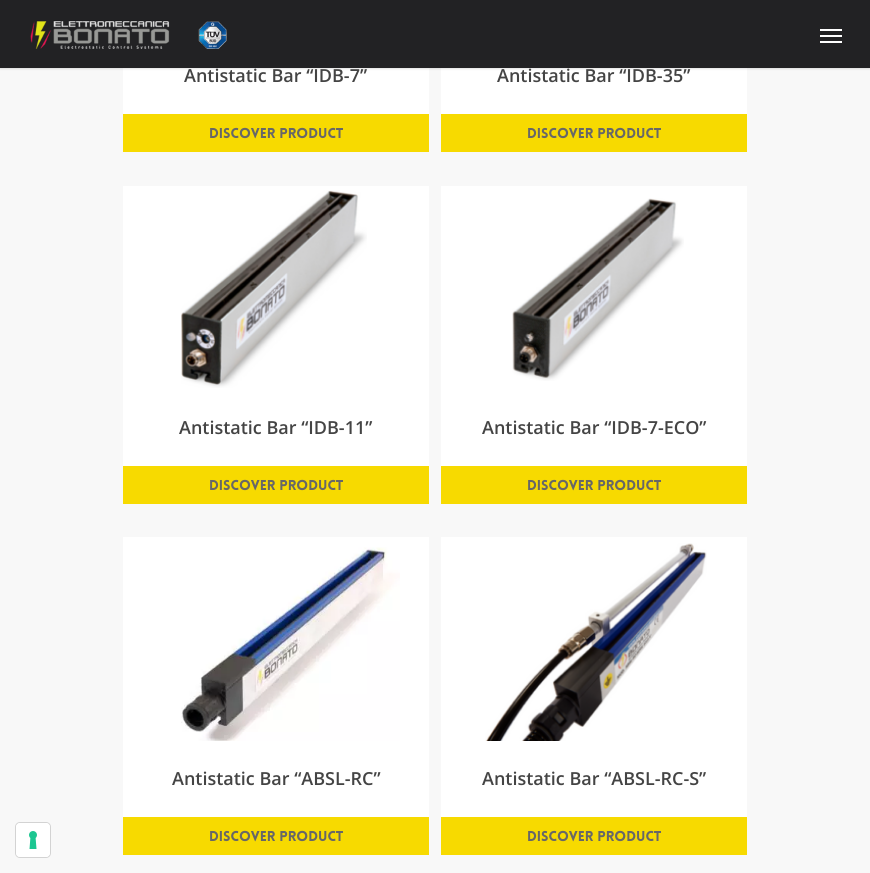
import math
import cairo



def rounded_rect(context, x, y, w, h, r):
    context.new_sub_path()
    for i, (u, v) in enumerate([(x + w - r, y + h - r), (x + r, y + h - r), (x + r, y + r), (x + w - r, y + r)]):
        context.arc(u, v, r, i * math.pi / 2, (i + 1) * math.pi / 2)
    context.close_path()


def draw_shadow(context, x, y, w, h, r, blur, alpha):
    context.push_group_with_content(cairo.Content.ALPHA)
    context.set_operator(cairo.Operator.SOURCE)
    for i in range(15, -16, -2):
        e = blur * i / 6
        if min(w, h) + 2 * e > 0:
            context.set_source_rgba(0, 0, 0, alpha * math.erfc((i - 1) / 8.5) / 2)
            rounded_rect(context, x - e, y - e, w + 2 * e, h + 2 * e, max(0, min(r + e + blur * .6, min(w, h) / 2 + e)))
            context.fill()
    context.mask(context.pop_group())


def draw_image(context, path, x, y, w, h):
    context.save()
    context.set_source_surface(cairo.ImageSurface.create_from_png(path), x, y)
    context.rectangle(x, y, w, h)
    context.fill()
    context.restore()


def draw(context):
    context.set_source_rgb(248 / 255, 248 / 255, 248 / 255)
    context.paint()
    context.set_source_rgb(1, 1, 1)
    context.rectangle(123, 68, 306, 46)
    context.fill()
    context.rectangle(441, 68, 306, 46)
    context.fill()
    context.set_source_rgb(0, 0, 0)
    draw_shadow(context, 0, 0, 870, 68, 0, 1.5, 0.22)
    context.set_source_rgb(34 / 255, 34 / 255, 36 / 255)
    context.rectangle(0, 0, 870, 68)
    context.fill()
    draw_image(context, "images/1.png", 30, 20, 197, 29)
    context.set_source_rgb(1, 1, 1)
    context.rectangle(820, 29, 22, 2)
    context.fill()
    context.rectangle(820, 41, 22, 2)
    context.fill()
    context.rectangle(820, 35, 22, 2)
    context.fill()
    rounded_rect(context, 15.5, 822.5, 35, 35, 4.5)
    context.set_source_rgb(211 / 255, 211 / 255, 211 / 255)
    context.set_line_width(1)
    context.stroke()
    context.set_source_rgb(1, 1, 1)
    rounded_rect(context, 16, 823, 34, 34, 4)
    context.fill()
    draw_image(context, "images/2.png", 29, 831, 8, 18)
    context.set_source_rgb(247 / 255, 218 / 255, 0)
    context.rectangle(123, 114, 306, 38)
    context.fill()
    context.rectangle(441, 114, 306, 38)
    context.fill()
    context.set_source_rgb(1, 1, 1)
    context.rectangle(123, 186, 306, 280)
    context.fill()
    draw_image(context, "images/3.png", 181, 190, 186, 198)
    context.set_source_rgb(247 / 255, 218 / 255, 0)
    context.rectangle(123, 466, 306, 38)
    context.fill()
    context.set_source_rgb(1, 1, 1)
    context.rectangle(441, 186, 306, 280)
    context.fill()
    draw_image(context, "images/4.png", 512, 198, 172, 183)
    context.set_source_rgb(247 / 255, 218 / 255, 0)
    context.rectangle(441, 466, 306, 38)
    context.fill()
    context.set_source_rgb(1, 1, 1)
    context.rectangle(123, 537, 306, 280)
    context.fill()
    draw_image(context, "images/5.png", 181, 547, 219, 194)
    context.set_source_rgb(247 / 255, 218 / 255, 0)
    context.rectangle(123, 817, 306, 38)
    context.fill()
    context.set_source_rgb(1, 1, 1)
    context.rectangle(441, 537, 306, 280)
    context.fill()
    draw_image(context, "images/6.png", 485, 543, 222, 198)
    context.set_source_rgb(247 / 255, 218 / 255, 0)
    context.rectangle(441, 817, 306, 38)
    context.fill()
    context.select_font_face("Open Sans SemiBold")
    context.set_font_size(18)
    context.set_source_rgb(68 / 255, 68 / 255, 68 / 255)
    context.move_to(184, 82)
    context.show_text("Antistatic Bar “IDB-7”")
    context.select_font_face("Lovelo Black")
    context.set_font_size(14)
    context.set_source_rgb(103 / 255, 103 / 255, 103 / 255)
    context.move_to(209, 138)
    context.show_text("Discover product")
    context.select_font_face("Open Sans SemiBold")
    context.set_font_size(18)
    context.set_source_rgb(68 / 255, 68 / 255, 68 / 255)
    context.move_to(497, 82)
    context.show_text("Antistatic Bar “IDB-35”")
    context.select_font_face("Lovelo Black")
    context.set_font_size(14)
    context.set_source_rgb(103 / 255, 103 / 255, 103 / 255)
    context.move_to(527, 138)
    context.show_text("Discover product")
    context.select_font_face("Open Sans SemiBold")
    context.set_font_size(18)
    context.set_source_rgb(68 / 255, 68 / 255, 68 / 255)
    context.move_to(179, 434)
    context.show_text("Antistatic Bar “IDB-11”")
    context.select_font_face("Lovelo Black")
    context.set_font_size(14)
    context.set_source_rgb(103 / 255, 103 / 255, 103 / 255)
    context.move_to(209, 490)
    context.show_text("Discover product")
    context.select_font_face("Open Sans SemiBold")
    context.set_font_size(18)
    context.set_source_rgb(68 / 255, 68 / 255, 68 / 255)
    context.move_to(482, 434)
    context.show_text("Antistatic Bar “IDB-7-ECO”")
    context.select_font_face("Lovelo Black")
    context.set_font_size(14)
    context.set_source_rgb(103 / 255, 103 / 255, 103 / 255)
    context.move_to(527, 490)
    context.show_text("Discover product")
    context.select_font_face("Open Sans SemiBold")
    context.set_font_size(18)
    context.set_source_rgb(68 / 255, 68 / 255, 68 / 255)
    context.move_to(172, 785)
    context.show_text("Antistatic Bar “ABSL-RC”")
    context.select_font_face("Lovelo Black")
    context.set_font_size(14)
    context.set_source_rgb(103 / 255, 103 / 255, 103 / 255)
    context.move_to(209, 841)
    context.show_text("Discover product")
    context.select_font_face("Open Sans SemiBold")
    context.set_font_size(18)
    context.set_source_rgb(68 / 255, 68 / 255, 68 / 255)
    context.move_to(482, 785)
    context.show_text("Antistatic Bar “ABSL-RC-S”")
    context.select_font_face("Lovelo Black")
    context.set_font_size(14)
    context.set_source_rgb(103 / 255, 103 / 255, 103 / 255)
    context.move_to(527, 841)
    context.show_text("Discover product")


surface = cairo.ImageSurface(cairo.Format.RGB24, 870, 873)
context = cairo.Context(surface)
options = cairo.FontOptions()
options.set_hint_metrics(cairo.HintMetrics.OFF)
options.set_hint_style(cairo.HintStyle.NONE)
context.set_font_options(options)
context.set_miter_limit(4)
draw(context)
surface.write_to_png("out.png")
